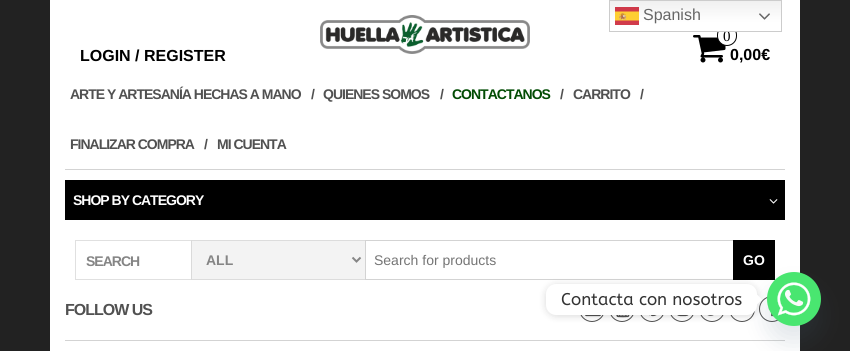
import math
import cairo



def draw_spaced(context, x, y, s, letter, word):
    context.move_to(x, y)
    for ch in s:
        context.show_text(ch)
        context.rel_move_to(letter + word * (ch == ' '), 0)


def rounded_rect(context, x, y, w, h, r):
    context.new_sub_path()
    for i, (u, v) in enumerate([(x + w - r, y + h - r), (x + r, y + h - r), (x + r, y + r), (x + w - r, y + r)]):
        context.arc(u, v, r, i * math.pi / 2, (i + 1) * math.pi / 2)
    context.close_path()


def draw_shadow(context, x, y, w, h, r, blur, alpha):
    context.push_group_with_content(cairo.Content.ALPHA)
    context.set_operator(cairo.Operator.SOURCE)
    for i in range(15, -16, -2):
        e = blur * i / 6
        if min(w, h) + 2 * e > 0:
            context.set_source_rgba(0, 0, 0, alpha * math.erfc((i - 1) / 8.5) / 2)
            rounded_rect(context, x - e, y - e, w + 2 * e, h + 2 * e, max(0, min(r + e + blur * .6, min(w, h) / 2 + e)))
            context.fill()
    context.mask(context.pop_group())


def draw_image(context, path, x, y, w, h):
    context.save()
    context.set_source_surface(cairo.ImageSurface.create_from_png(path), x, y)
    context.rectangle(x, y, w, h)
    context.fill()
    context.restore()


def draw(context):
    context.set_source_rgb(34 / 255, 34 / 255, 34 / 255)
    context.paint()
    context.set_source_rgb(1, 1, 1)
    context.rectangle(50, 0, 750, 351)
    context.fill()
    draw_image(context, "images/4.png", 693, 35, 33, 28)
    rounded_rect(context, 717.5, 25.5, 19, 20, 9.5)
    context.fill_preserve()
    context.set_source_rgb(0, 0, 0)
    context.set_line_width(1)
    context.stroke()
    gradient = cairo.LinearGradient(696, 0, 696, 32)
    gradient.add_color_stop_rgba(0, 239 / 255, 239 / 255, 239 / 255, 1)
    gradient.add_color_stop_rgba(0.7, 1, 1, 1, 1)
    context.set_source(gradient)
    context.rectangle(610, 1, 171, 30)
    context.fill()
    draw_image(context, "images/3.png", 320, 15, 210, 39)
    context.set_source_rgb(211 / 255, 211 / 255, 211 / 255)
    context.rectangle(65, 169, 720, 1)
    context.fill()
    context.rectangle(65, 340, 720, 1)
    context.fill()
    context.set_source_rgb(0, 0, 0)
    context.rectangle(65, 180, 720, 40)
    context.fill()
    draw_image(context, "images/5.png", 769, 199, 9, 5)
    context.rectangle(75.5, 240.5, 116, 39)
    context.set_source_rgb(224 / 255, 224 / 255, 224 / 255)
    context.stroke()
    context.set_source_rgba(239 / 255, 239 / 255, 239 / 255, 0.7)
    context.rectangle(191, 240, 174, 40)
    context.fill()
    context.rectangle(191.5, 240.5, 174, 39)
    context.set_source_rgba(211 / 255, 211 / 255, 211 / 255, 0.7)
    context.stroke()
    context.new_path()
    context.move_to(352.5, 257.5)
    context.line_to(356.5, 261.5)
    context.line_to(360.5, 257.5)
    context.set_source_rgb(133 / 255, 133 / 255, 133 / 255)
    context.set_line_width(2)
    context.stroke()
    context.rectangle(365.5, 240.5, 407, 39)
    context.set_source_rgb(211 / 255, 211 / 255, 211 / 255)
    context.set_line_width(1)
    context.stroke()
    context.set_source_rgb(0, 0, 0)
    context.rectangle(733, 240, 42, 40)
    context.fill()
    context.arc(592, 309, 12.5, 0, 2 * math.pi)
    context.set_source_rgb(81 / 255, 81 / 255, 81 / 255)
    context.stroke()
    draw_image(context, "images/6.png", 585, 315, 16, 2)
    context.arc(622, 309, 12.5, 0, 2 * math.pi)
    context.stroke()
    draw_image(context, "images/7.png", 616, 315, 14, 3)
    context.arc(652, 309, 12.5, 0, 2 * math.pi)
    context.stroke()
    draw_image(context, "images/8.png", 649, 315, 8, 2)
    context.arc(682, 309, 12.5, 0, 2 * math.pi)
    context.stroke()
    draw_image(context, "images/9.png", 677, 315, 12, 2)
    context.arc(712, 309, 12.5, 0, 2 * math.pi)
    context.stroke()
    draw_image(context, "images/10.png", 707, 315, 7, 1)
    context.arc(742, 309, 12.5, 0, 2 * math.pi)
    context.stroke()
    context.arc(772, 309, 12.5, 0, 2 * math.pi)
    context.stroke()
    draw_image(context, "images/11.png", 768, 306, 6, 11)
    context.set_source_rgb(73 / 255, 104 / 255, 126 / 255)
    draw_shadow(context, 767, 288, 54, 54, 27, 12, 0.16)
    draw_image(context, "images/12.png", 767, 272, 54, 54)
    context.set_source_rgb(0, 0, 0)
    draw_shadow(context, 546, 285, 211, 31, 10, 4, 0.15)
    context.set_source_rgb(1, 1, 1)
    rounded_rect(context, 546, 284, 211, 31, 10)
    context.fill()
    context.new_path()
    context.move_to(757, 304.5)
    context.line_to(757, 294.5)
    context.line_to(762, 299.5)
    context.close_path()
    context.fill()
    context.select_font_face("Liberation Sans", cairo.FontSlant.NORMAL, cairo.FontWeight.BOLD)
    context.set_font_size(16)
    context.set_source_rgb(0, 0, 0)
    context.move_to(80, 61)
    context.show_text("LOGIN / REGISTER")
    context.select_font_face("Liberation Serif")
    context.set_font_size(15)
    context.move_to(723, 41)
    context.show_text("0")
    context.rectangle(609.5, 0.5, 172, 31)
    context.set_source_rgb(204 / 255, 204 / 255, 204 / 255)
    context.stroke()
    draw_image(context, "images/2.png", 759, 13, 11, 7)
    draw_image(context, "images/1.png", 615, 7, 24, 18)
    context.select_font_face("Liberation Sans")
    context.set_font_size(16)
    context.set_source_rgb(102 / 255, 102 / 255, 102 / 255)
    context.move_to(643, 20)
    context.show_text("Spanish")
    context.select_font_face("Liberation Sans", cairo.FontSlant.NORMAL, cairo.FontWeight.BOLD)
    context.set_source_rgb(0, 0, 0)
    context.move_to(730, 60)
    context.show_text("0,00€")
    context.set_font_size(14)
    context.set_source_rgb(81 / 255, 81 / 255, 81 / 255)
    draw_spaced(context, 70, 99, "ARTE Y ARTESANÍA HECHAS A MANO", -1, 0)
    draw_spaced(context, 311, 99, "/", -1, 0)
    draw_spaced(context, 323, 99, "QUIENES SOMOS", -1, 0)
    draw_spaced(context, 440, 99, "/", -1, 0)
    context.set_source_rgb(2 / 255, 76 / 255, 4 / 255)
    draw_spaced(context, 452, 99, "CONTACTANOS", -1, 0)
    context.set_source_rgb(81 / 255, 81 / 255, 81 / 255)
    draw_spaced(context, 560, 99, "/", -1, 0)
    draw_spaced(context, 573, 99, "CARRITO", -1, 0)
    draw_spaced(context, 640, 99, "/", -1, 0)
    draw_spaced(context, 70, 149, "FINALIZAR COMPRA", -1, 0)
    draw_spaced(context, 204, 149, "/", -1, 0)
    draw_spaced(context, 217, 149, "MI CUENTA", -1, 0)
    context.set_source_rgb(1, 1, 1)
    draw_spaced(context, 73, 205, "SHOP BY CATEGORY", -1, 0)
    context.set_source_rgb(133 / 255, 133 / 255, 133 / 255)
    draw_spaced(context, 86, 266, "SEARCH", -1, 0)
    context.move_to(206, 265)
    context.show_text("ALL")
    context.select_font_face("Liberation Sans")
    context.set_source_rgb(117 / 255, 117 / 255, 117 / 255)
    context.move_to(374, 265)
    context.show_text("Search for products")
    context.select_font_face("Liberation Sans", cairo.FontSlant.NORMAL, cairo.FontWeight.BOLD)
    context.set_source_rgb(1, 1, 1)
    context.move_to(743, 265)
    context.show_text("GO")
    context.set_font_size(16)
    context.set_source_rgb(81 / 255, 81 / 255, 81 / 255)
    draw_spaced(context, 65, 315, "FOLLOW US", -1, 0)
    context.select_font_face("ABeeZee")
    context.set_font_size(17)
    context.set_source_rgb(51 / 255, 51 / 255, 51 / 255)
    context.move_to(561, 305)
    context.show_text("Contacta con nosotros")


surface = cairo.ImageSurface(cairo.Format.RGB24, 850, 351)
context = cairo.Context(surface)
options = cairo.FontOptions()
options.set_hint_metrics(cairo.HintMetrics.OFF)
options.set_hint_style(cairo.HintStyle.NONE)
context.set_font_options(options)
context.set_miter_limit(4)
draw(context)
surface.write_to_png("out.png")
